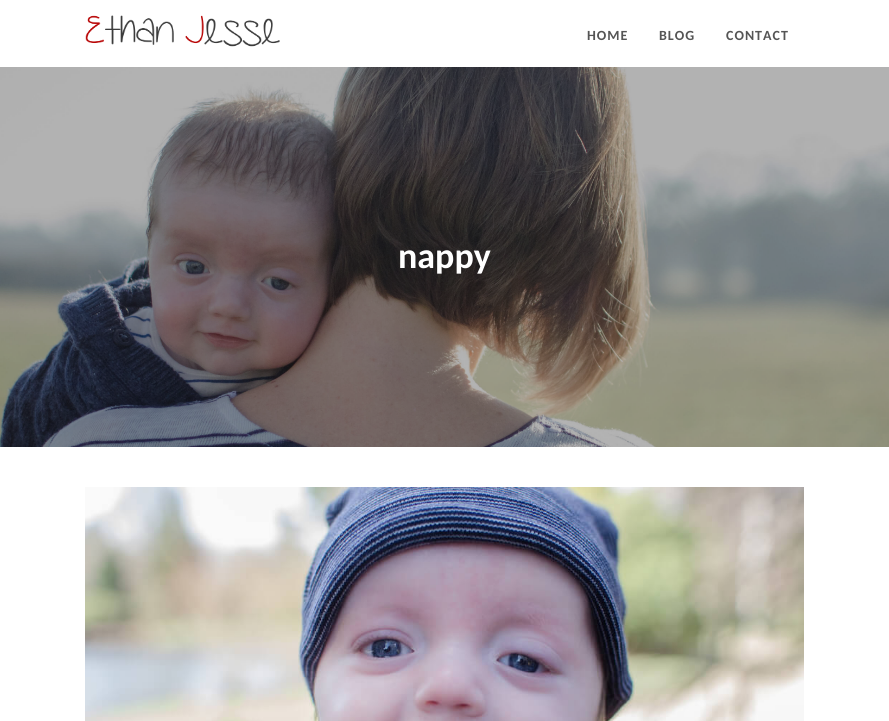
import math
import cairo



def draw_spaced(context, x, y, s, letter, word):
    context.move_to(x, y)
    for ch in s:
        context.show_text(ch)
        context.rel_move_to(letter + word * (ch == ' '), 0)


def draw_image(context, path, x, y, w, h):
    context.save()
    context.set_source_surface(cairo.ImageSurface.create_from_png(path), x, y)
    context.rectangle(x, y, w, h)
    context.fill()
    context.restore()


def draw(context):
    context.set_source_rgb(1, 1, 1)
    context.paint()
    draw_image(context, "images/1.png", 85, 15, 195, 32)
    draw_image(context, "images/2.png", 0, 67, 889, 380)
    draw_image(context, "images/3.png", 85, 487, 719, 234)
    context.select_font_face("Carlito", cairo.FontSlant.NORMAL, cairo.FontWeight.BOLD)
    context.set_font_size(14)
    context.set_source_rgb(85 / 255, 85 / 255, 85 / 255)
    draw_spaced(context, 587, 40, "HOME", 1, 0)
    draw_spaced(context, 659, 40, "BLOG", 1, 0)
    draw_spaced(context, 726, 40, "CONTACT", 1, 0)
    context.set_font_size(36)
    context.set_source_rgb(1, 1, 1)
    context.move_to(398, 268)
    context.show_text("nappy")


surface = cairo.ImageSurface(cairo.Format.RGB24, 889, 721)
context = cairo.Context(surface)
options = cairo.FontOptions()
options.set_hint_metrics(cairo.HintMetrics.OFF)
options.set_hint_style(cairo.HintStyle.NONE)
context.set_font_options(options)
context.set_miter_limit(4)
draw(context)
surface.write_to_png("out.png")
